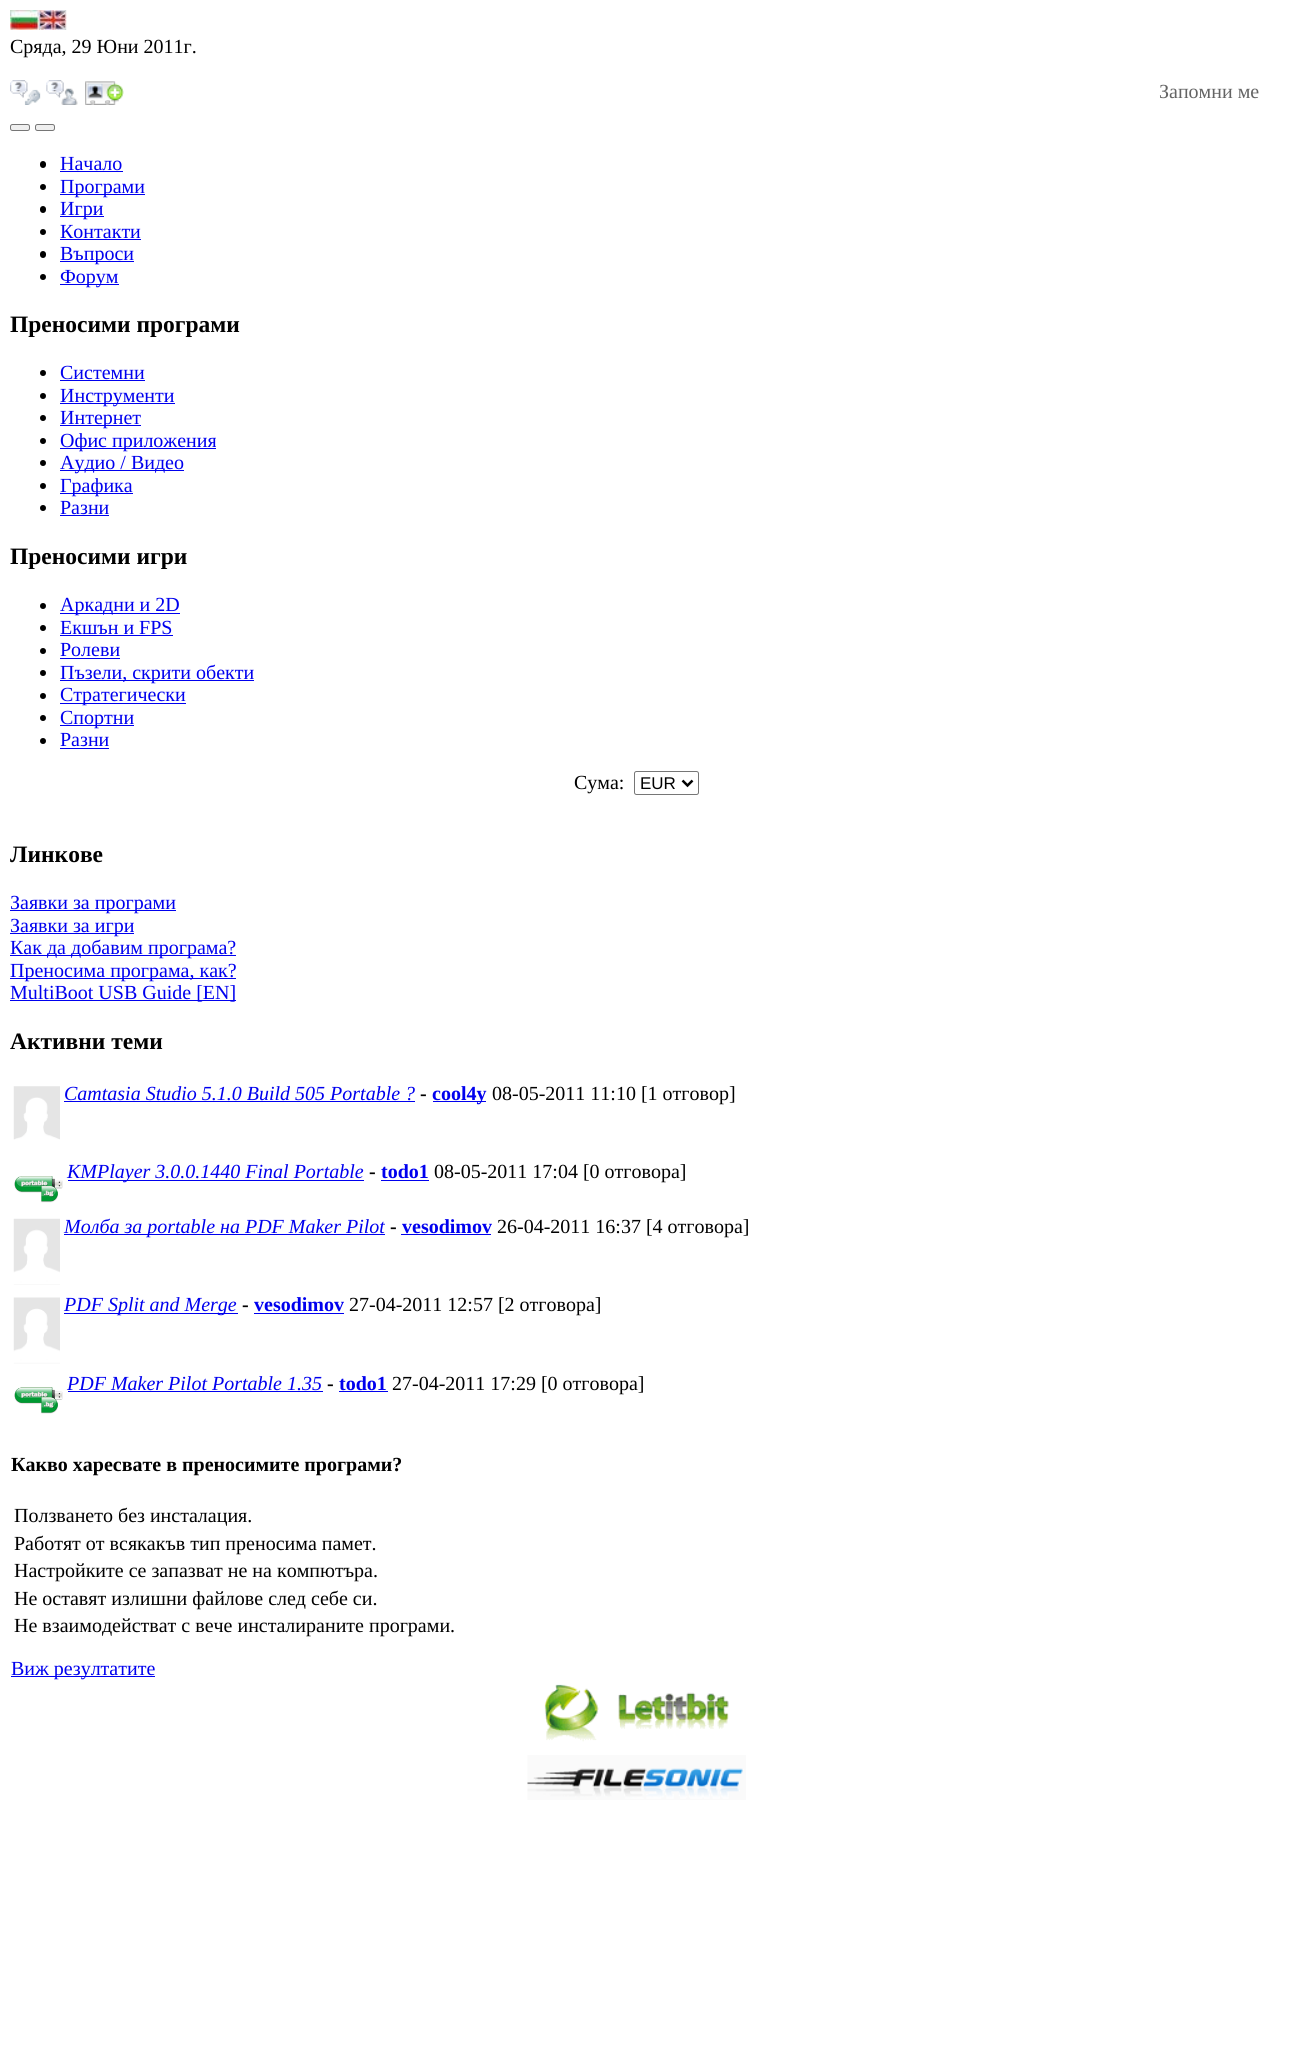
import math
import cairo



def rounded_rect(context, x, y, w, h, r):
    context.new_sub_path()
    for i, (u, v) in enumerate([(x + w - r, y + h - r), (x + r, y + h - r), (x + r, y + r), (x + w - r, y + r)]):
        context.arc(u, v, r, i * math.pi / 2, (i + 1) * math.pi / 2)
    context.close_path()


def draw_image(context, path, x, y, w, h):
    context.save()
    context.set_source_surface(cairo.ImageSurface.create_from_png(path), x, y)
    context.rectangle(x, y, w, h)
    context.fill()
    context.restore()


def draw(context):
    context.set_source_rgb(1, 1, 1)
    context.paint()
    draw_image(context, "images/1.png", 10, 10, 29, 20)
    draw_image(context, "images/2.png", 38, 10, 29, 20)
    draw_image(context, "images/3.png", 10, 80, 31, 25)
    draw_image(context, "images/4.png", 46, 80, 32, 25)
    draw_image(context, "images/5.png", 85, 81, 39, 24)
    context.set_source_rgb(239 / 255, 239 / 255, 239 / 255)
    rounded_rect(context, 10.5, 124.5, 19, 6, 2)
    context.fill_preserve()
    context.set_source_rgb(118 / 255, 118 / 255, 118 / 255)
    context.set_line_width(1)
    context.stroke()
    context.set_source_rgb(239 / 255, 239 / 255, 239 / 255)
    rounded_rect(context, 35.5, 124.5, 19, 6, 2)
    context.fill_preserve()
    context.set_source_rgb(118 / 255, 118 / 255, 118 / 255)
    context.stroke()
    context.set_source_rgb(0, 0, 0)
    rounded_rect(context, 40, 161, 6, 7, 3)
    context.fill()
    context.set_source_rgb(0, 0, 238 / 255)
    context.rectangle(60, 171, 63, 1)
    context.fill()
    context.set_source_rgb(0, 0, 0)
    context.arc(43, 187, 3, 0, 2 * math.pi)
    context.fill()
    context.set_source_rgb(0, 0, 238 / 255)
    context.rectangle(60, 194, 85, 1)
    context.fill()
    context.set_source_rgb(0, 0, 0)
    rounded_rect(context, 40, 206, 6, 7, 3)
    context.fill()
    context.set_source_rgb(0, 0, 238 / 255)
    context.rectangle(60, 216, 44, 1)
    context.fill()
    context.set_source_rgb(0, 0, 0)
    context.arc(43, 232, 3, 0, 2 * math.pi)
    context.fill()
    context.set_source_rgb(0, 0, 238 / 255)
    context.rectangle(60, 239, 81, 1)
    context.fill()
    context.set_source_rgb(0, 0, 0)
    rounded_rect(context, 40, 251, 6, 7, 3)
    context.fill()
    context.set_source_rgb(0, 0, 238 / 255)
    context.rectangle(60, 261, 74, 1)
    context.fill()
    context.set_source_rgb(0, 0, 0)
    context.arc(43, 277, 3, 0, 2 * math.pi)
    context.fill()
    context.set_source_rgb(0, 0, 238 / 255)
    context.rectangle(60, 284, 59, 1)
    context.fill()
    context.set_source_rgb(0, 0, 0)
    context.arc(43, 373, 3, 0, 2 * math.pi)
    context.fill()
    context.set_source_rgb(0, 0, 238 / 255)
    context.rectangle(60, 380, 85, 1)
    context.fill()
    context.set_source_rgb(0, 0, 0)
    context.arc(43, 396, 3, 0, 2 * math.pi)
    context.fill()
    context.set_source_rgb(0, 0, 238 / 255)
    context.rectangle(60, 403, 115, 1)
    context.fill()
    context.set_source_rgb(0, 0, 0)
    context.arc(43, 418, 3, 0, 2 * math.pi)
    context.fill()
    context.set_source_rgb(0, 0, 238 / 255)
    context.rectangle(60, 425, 81, 1)
    context.fill()
    context.set_source_rgb(0, 0, 0)
    context.arc(43, 441, 3, 0, 2 * math.pi)
    context.fill()
    context.set_source_rgb(0, 0, 238 / 255)
    context.rectangle(60, 448, 156, 1)
    context.fill()
    context.set_source_rgb(0, 0, 0)
    context.arc(43, 463, 3, 0, 2 * math.pi)
    context.fill()
    context.set_source_rgb(0, 0, 238 / 255)
    context.rectangle(60, 470, 124, 1)
    context.fill()
    context.set_source_rgb(0, 0, 0)
    context.arc(43, 486, 3, 0, 2 * math.pi)
    context.fill()
    context.set_source_rgb(0, 0, 238 / 255)
    context.rectangle(60, 493, 73, 1)
    context.fill()
    context.set_source_rgb(0, 0, 0)
    context.arc(43, 508, 3, 0, 2 * math.pi)
    context.fill()
    context.set_source_rgb(0, 0, 238 / 255)
    context.rectangle(60, 515, 49, 1)
    context.fill()
    context.set_source_rgb(0, 0, 0)
    context.arc(43, 606, 3, 0, 2 * math.pi)
    context.fill()
    context.set_source_rgb(0, 0, 238 / 255)
    context.rectangle(60, 613, 120, 1)
    context.fill()
    context.set_source_rgb(0, 0, 0)
    context.arc(43, 628, 3, 0, 2 * math.pi)
    context.fill()
    context.set_source_rgb(0, 0, 238 / 255)
    context.rectangle(60, 635, 113, 1)
    context.fill()
    context.set_source_rgb(0, 0, 0)
    context.arc(43, 651, 3, 0, 2 * math.pi)
    context.fill()
    context.set_source_rgb(0, 0, 238 / 255)
    context.rectangle(60, 658, 60, 1)
    context.fill()
    context.set_source_rgb(0, 0, 0)
    context.arc(43, 673, 3, 0, 2 * math.pi)
    context.fill()
    context.set_source_rgb(0, 0, 238 / 255)
    context.rectangle(60, 680, 194, 1)
    context.fill()
    context.set_source_rgb(0, 0, 0)
    context.arc(43, 696, 3, 0, 2 * math.pi)
    context.fill()
    context.set_source_rgb(0, 0, 238 / 255)
    context.rectangle(60, 703, 126, 1)
    context.fill()
    context.set_source_rgb(0, 0, 0)
    context.arc(43, 718, 3, 0, 2 * math.pi)
    context.fill()
    context.set_source_rgb(0, 0, 238 / 255)
    context.rectangle(60, 725, 74, 1)
    context.fill()
    context.set_source_rgb(0, 0, 0)
    context.arc(43, 741, 3, 0, 2 * math.pi)
    context.fill()
    context.set_source_rgb(0, 0, 238 / 255)
    context.rectangle(60, 748, 49, 1)
    context.fill()
    rounded_rect(context, 634.5, 771.5, 64, 23, 2)
    context.set_source_rgb(118 / 255, 118 / 255, 118 / 255)
    context.stroke()
    context.new_path()
    context.move_to(682.5, 780.5)
    context.line_to(687.5, 785.5)
    context.line_to(692.5, 780.5)
    context.set_source_rgb(0, 0, 0)
    context.set_line_width(2.5)
    context.stroke()
    context.set_source_rgb(0, 0, 238 / 255)
    context.rectangle(10, 910, 166, 1)
    context.fill()
    context.rectangle(10, 933, 124, 1)
    context.fill()
    context.rectangle(10, 955, 226, 1)
    context.fill()
    context.rectangle(10, 978, 226, 1)
    context.fill()
    context.rectangle(10, 1000, 226, 1)
    context.fill()
    draw_image(context, "images/6.png", 13, 1086, 47, 54)
    context.rectangle(64, 1101, 351, 1)
    context.fill()
    context.rectangle(433, 1101, 53, 1)
    context.fill()
    context.rectangle(68, 1180, 296, 1)
    context.fill()
    context.rectangle(381, 1180, 48, 1)
    context.fill()
    draw_image(context, "images/7.png", 14, 1176, 49, 27)
    draw_image(context, "images/8.png", 13, 1218, 47, 67)
    context.rectangle(64, 1234, 321, 1)
    context.fill()
    context.rectangle(401, 1234, 90, 1)
    context.fill()
    draw_image(context, "images/9.png", 13, 1297, 47, 67)
    context.rectangle(64, 1313, 174, 1)
    context.fill()
    context.rectangle(254, 1313, 90, 1)
    context.fill()
    context.rectangle(68, 1391, 255, 1)
    context.fill()
    context.rectangle(339, 1391, 49, 1)
    context.fill()
    draw_image(context, "images/10.png", 14, 1387, 49, 27)
    context.rectangle(11, 1676, 144, 1)
    context.fill()
    draw_image(context, "images/11.png", 544, 1684, 185, 58)
    draw_image(context, "images/12.png", 527, 1755, 219, 45)
    context.select_font_face("Liberation Serif")
    context.set_font_size(20)
    context.set_source_rgb(0, 0, 0)
    context.move_to(10, 53)
    context.show_text("Сряда, 29 Юни 2011г.")
    context.set_source_rgb(100 / 255, 100 / 255, 100 / 255)
    context.move_to(1159, 98)
    context.show_text("Запомни ме")
    context.set_source_rgb(0, 0, 238 / 255)
    context.move_to(60, 170)
    context.show_text("Начало")
    context.move_to(60, 193)
    context.show_text("Програми")
    context.move_to(60, 215)
    context.show_text("Игри")
    context.move_to(60, 238)
    context.show_text("Контакти")
    context.move_to(60, 260)
    context.show_text("Въпроси")
    context.move_to(60, 283)
    context.show_text("Форум")
    context.select_font_face("Liberation Serif", cairo.FontSlant.NORMAL, cairo.FontWeight.BOLD)
    context.set_font_size(23.5)
    context.set_source_rgb(0, 0, 0)
    context.move_to(10, 332)
    context.show_text("Преносими програми")
    context.select_font_face("Liberation Serif")
    context.set_font_size(20)
    context.set_source_rgb(0, 0, 238 / 255)
    context.move_to(60, 379)
    context.show_text("Системни")
    context.move_to(60, 402)
    context.show_text("Инструменти")
    context.move_to(60, 424)
    context.show_text("Интернет")
    context.move_to(60, 447)
    context.show_text("Офис приложения")
    context.move_to(60, 469)
    context.show_text("Аудио / Видео")
    context.move_to(60, 492)
    context.show_text("Графика")
    context.move_to(60, 514)
    context.show_text("Разни")
    context.select_font_face("Liberation Serif", cairo.FontSlant.NORMAL, cairo.FontWeight.BOLD)
    context.set_font_size(23.5)
    context.set_source_rgb(0, 0, 0)
    context.move_to(10, 564)
    context.show_text("Преносими игри")
    context.select_font_face("Liberation Serif")
    context.set_font_size(20)
    context.set_source_rgb(0, 0, 238 / 255)
    context.move_to(60, 611)
    context.show_text("Аркадни и 2D")
    context.move_to(60, 634)
    context.show_text("Екшън и FPS")
    context.move_to(60, 656)
    context.show_text("Ролеви")
    context.move_to(60, 679)
    context.show_text("Пъзели, скрити обекти")
    context.move_to(60, 701)
    context.show_text("Стратегически")
    context.move_to(60, 724)
    context.show_text("Спортни")
    context.move_to(60, 746)
    context.show_text("Разни")
    context.set_source_rgb(0, 0, 0)
    context.move_to(574, 789)
    context.show_text("Сума:")
    context.select_font_face("Liberation Sans")
    context.set_font_size(17)
    context.move_to(640, 789)
    context.show_text("EUR")
    context.select_font_face("Liberation Serif", cairo.FontSlant.NORMAL, cairo.FontWeight.BOLD)
    context.set_font_size(23.5)
    context.move_to(10, 862)
    context.show_text("Линкове")
    context.select_font_face("Liberation Serif")
    context.set_font_size(20)
    context.set_source_rgb(0, 0, 238 / 255)
    context.move_to(10, 909)
    context.show_text("Заявки за програми")
    context.move_to(10, 932)
    context.show_text("Заявки за игри")
    context.move_to(10, 954)
    context.show_text("Как да добавим програма?")
    context.move_to(10, 977)
    context.show_text("Преносима програма, как?")
    context.move_to(10, 999)
    context.show_text("MultiBoot USB Guide [EN]")
    context.select_font_face("Liberation Serif", cairo.FontSlant.NORMAL, cairo.FontWeight.BOLD)
    context.set_font_size(23.5)
    context.set_source_rgb(0, 0, 0)
    context.move_to(10, 1049)
    context.show_text("Активни теми")
    context.select_font_face("Liberation Serif", cairo.FontSlant.ITALIC)
    context.set_font_size(20)
    context.set_source_rgb(0, 0, 238 / 255)
    context.move_to(64, 1100)
    context.show_text("Camtasia Studio 5.1.0 Build 505 Portable ?")
    context.select_font_face("Liberation Serif", cairo.FontSlant.NORMAL, cairo.FontWeight.BOLD)
    context.set_source_rgb(0, 0, 0)
    context.move_to(420, 1100)
    context.show_text("-")
    context.set_source_rgb(0, 0, 238 / 255)
    context.move_to(432, 1100)
    context.show_text("cool4y")
    context.select_font_face("Liberation Serif")
    context.set_source_rgb(0, 0, 0)
    context.move_to(492, 1100)
    context.show_text("08-05-2011 11:10 [1 отговор]")
    context.select_font_face("Liberation Serif", cairo.FontSlant.ITALIC)
    context.set_source_rgb(0, 0, 238 / 255)
    context.move_to(67, 1178)
    context.show_text("KMPlayer 3.0.0.1440 Final Portable")
    context.select_font_face("Liberation Serif", cairo.FontSlant.NORMAL, cairo.FontWeight.BOLD)
    context.set_source_rgb(0, 0, 0)
    context.move_to(369, 1178)
    context.show_text("-")
    context.set_source_rgb(0, 0, 238 / 255)
    context.move_to(381, 1178)
    context.show_text("todo1")
    context.select_font_face("Liberation Serif")
    context.set_source_rgb(0, 0, 0)
    context.move_to(434, 1178)
    context.show_text("08-05-2011 17:04 [0 отговора]")
    context.select_font_face("Liberation Serif", cairo.FontSlant.ITALIC)
    context.set_source_rgb(0, 0, 238 / 255)
    context.move_to(64, 1233)
    context.show_text("Молба за portable на PDF Maker Pilot")
    context.select_font_face("Liberation Serif", cairo.FontSlant.NORMAL, cairo.FontWeight.BOLD)
    context.set_source_rgb(0, 0, 0)
    context.move_to(390, 1233)
    context.show_text("-")
    context.set_source_rgb(0, 0, 238 / 255)
    context.move_to(402, 1233)
    context.show_text("vesodimov")
    context.select_font_face("Liberation Serif")
    context.set_source_rgb(0, 0, 0)
    context.move_to(497, 1233)
    context.show_text("26-04-2011 16:37 [4 отговора]")
    context.select_font_face("Liberation Serif", cairo.FontSlant.ITALIC)
    context.set_source_rgb(0, 0, 238 / 255)
    context.move_to(64, 1311)
    context.show_text("PDF Split and Merge")
    context.select_font_face("Liberation Serif", cairo.FontSlant.NORMAL, cairo.FontWeight.BOLD)
    context.set_source_rgb(0, 0, 0)
    context.move_to(242, 1311)
    context.show_text("-")
    context.set_source_rgb(0, 0, 238 / 255)
    context.move_to(254, 1311)
    context.show_text("vesodimov")
    context.select_font_face("Liberation Serif")
    context.set_source_rgb(0, 0, 0)
    context.move_to(349, 1311)
    context.show_text("27-04-2011 12:57 [2 отговора]")
    context.select_font_face("Liberation Serif", cairo.FontSlant.ITALIC)
    context.set_source_rgb(0, 0, 238 / 255)
    context.move_to(67, 1390)
    context.show_text("PDF Maker Pilot Portable 1.35")
    context.select_font_face("Liberation Serif", cairo.FontSlant.NORMAL, cairo.FontWeight.BOLD)
    context.set_source_rgb(0, 0, 0)
    context.move_to(327, 1390)
    context.show_text("-")
    context.set_source_rgb(0, 0, 238 / 255)
    context.move_to(339, 1390)
    context.show_text("todo1")
    context.select_font_face("Liberation Serif")
    context.set_source_rgb(0, 0, 0)
    context.move_to(392, 1390)
    context.show_text("27-04-2011 17:29 [0 отговора]")
    context.select_font_face("Liberation Serif", cairo.FontSlant.NORMAL, cairo.FontWeight.BOLD)
    context.move_to(11, 1471)
    context.show_text("Какво харесвате в преносимите програми?")
    context.select_font_face("Liberation Serif")
    context.move_to(14, 1522)
    context.show_text("Ползването без инсталация.")
    context.move_to(14, 1550)
    context.show_text("Работят от всякакъв тип преносима памет.")
    context.move_to(14, 1577)
    context.show_text("Настройките се запазват не на компютъра.")
    context.move_to(14, 1605)
    context.show_text("Не оставят излишни файлове след себе си.")
    context.move_to(14, 1632)
    context.show_text("Не взаимодействат с вече инсталираните програми.")
    context.set_source_rgb(0, 0, 238 / 255)
    context.move_to(11, 1675)
    context.show_text("Виж резултатите")


surface = cairo.ImageSurface(cairo.Format.RGB24, 1300, 2045)
context = cairo.Context(surface)
options = cairo.FontOptions()
options.set_hint_metrics(cairo.HintMetrics.OFF)
options.set_hint_style(cairo.HintStyle.NONE)
context.set_font_options(options)
context.set_miter_limit(4)
draw(context)
surface.write_to_png("out.png")
